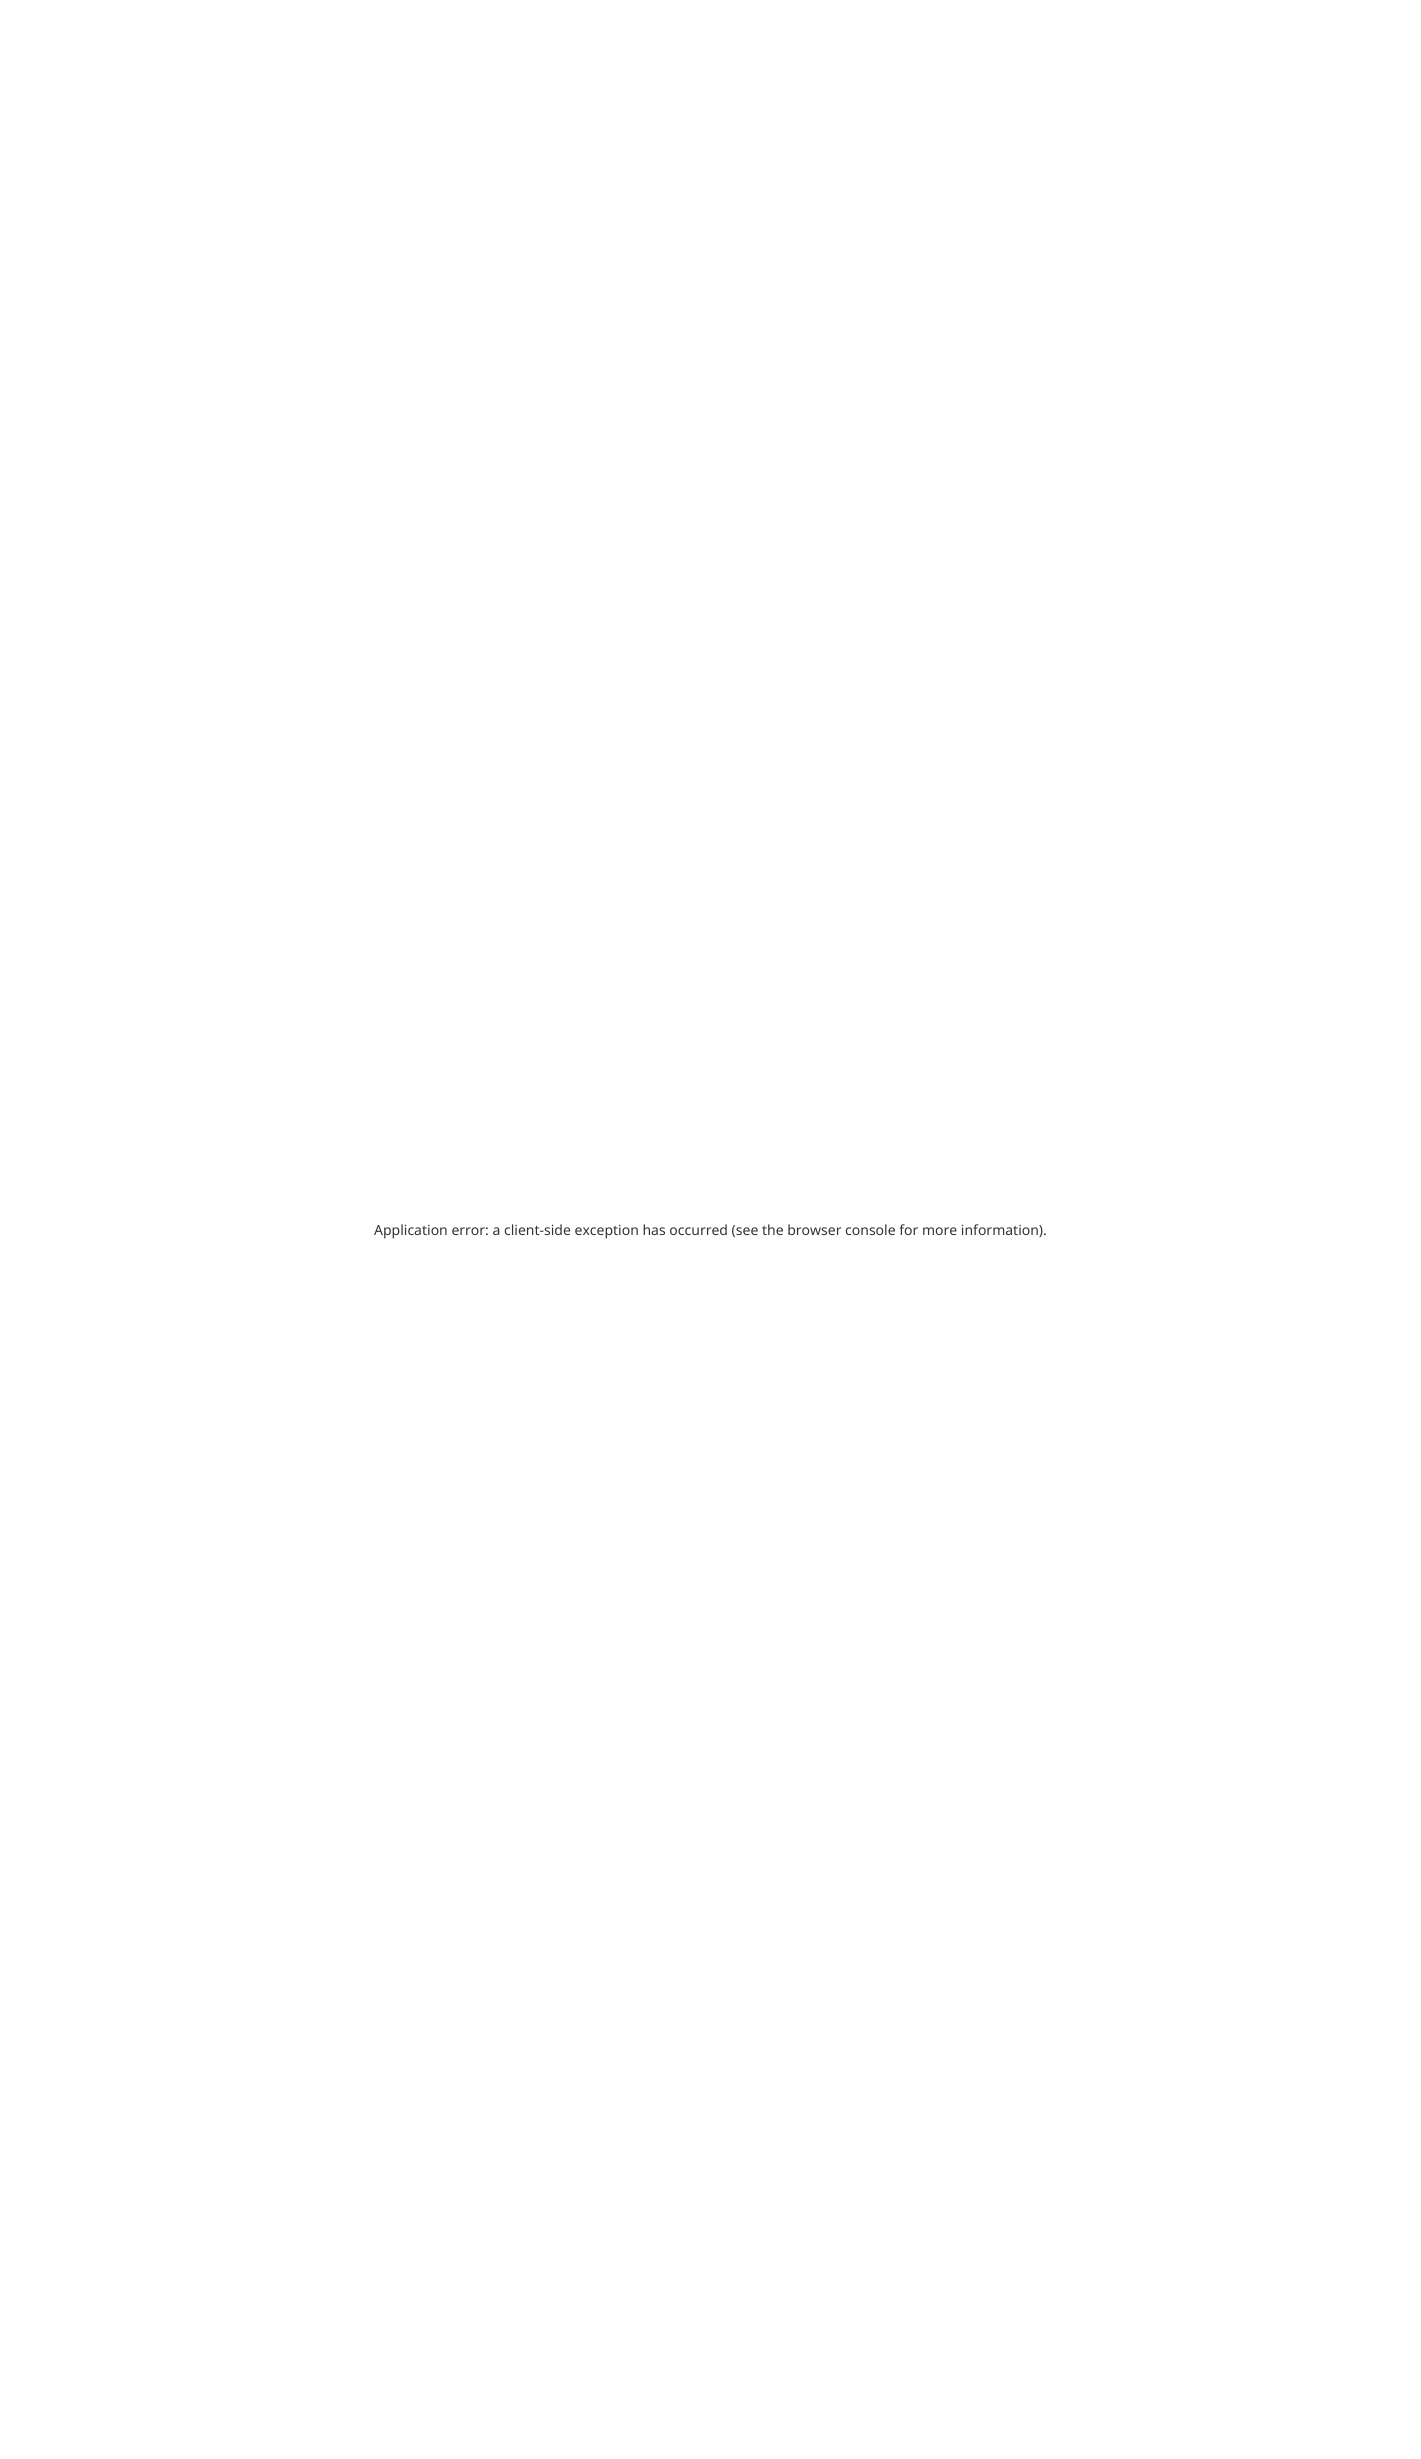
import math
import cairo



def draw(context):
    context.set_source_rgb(1, 1, 1)
    context.paint()
    context.select_font_face("Noto Sans")
    context.set_font_size(14)
    context.set_source_rgb(51 / 255, 51 / 255, 51 / 255)
    context.move_to(374, 1235)
    context.show_text("Application error: a client-side exception has occurred (see the browser console for more information).")


surface = cairo.ImageSurface(cairo.Format.RGB24, 1421, 2459)
context = cairo.Context(surface)
options = cairo.FontOptions()
options.set_hint_metrics(cairo.HintMetrics.OFF)
options.set_hint_style(cairo.HintStyle.NONE)
context.set_font_options(options)
context.set_miter_limit(4)
draw(context)
surface.write_to_png("out.png")
